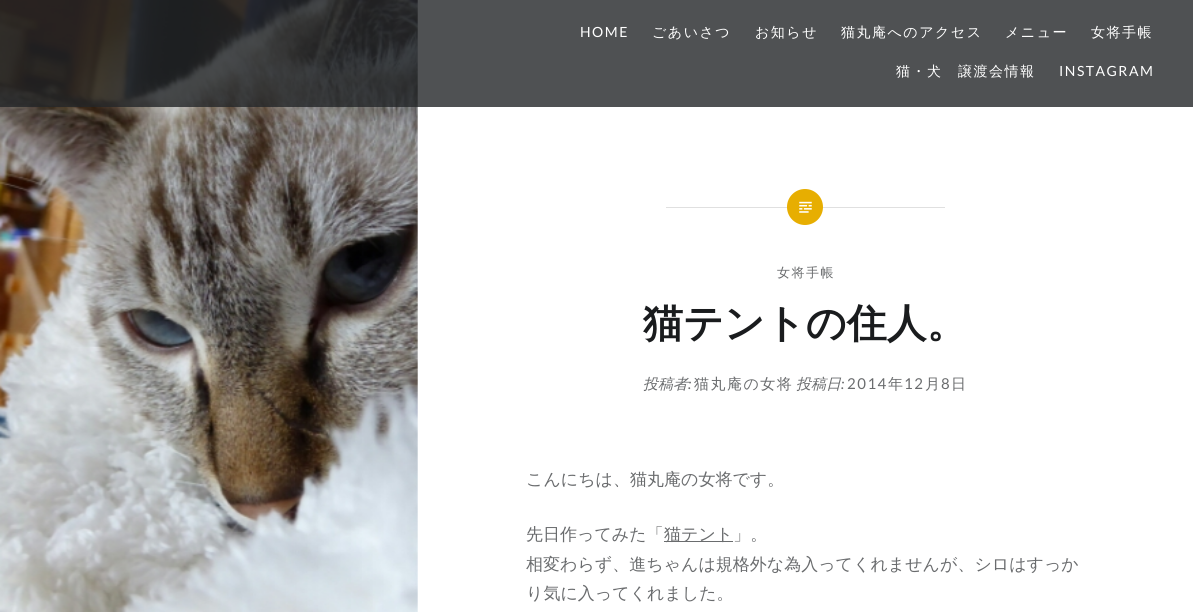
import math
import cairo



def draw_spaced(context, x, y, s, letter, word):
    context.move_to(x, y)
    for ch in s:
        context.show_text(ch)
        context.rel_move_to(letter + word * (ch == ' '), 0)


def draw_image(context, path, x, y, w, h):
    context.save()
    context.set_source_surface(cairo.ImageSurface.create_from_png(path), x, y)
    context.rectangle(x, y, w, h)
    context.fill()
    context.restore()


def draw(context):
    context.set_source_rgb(1, 1, 1)
    context.paint()
    draw_image(context, "images/1.png", 0, 0, 418, 612)
    context.set_source_rgba(36 / 255, 38 / 255, 41 / 255, 0.8)
    context.rectangle(0, 0, 1193, 107)
    context.fill()
    context.set_source_rgb(224 / 255, 224 / 255, 224 / 255)
    context.rectangle(666, 207, 279, 1)
    context.fill()
    context.set_source_rgb(231 / 255, 174 / 255, 1 / 255)
    context.arc(805, 207, 18, 0, 2 * math.pi)
    context.fill()
    draw_image(context, "images/2.png", 799, 201, 13, 12)
    context.set_source_rgb(106 / 255, 108 / 255, 110 / 255)
    context.rectangle(664, 541, 69, 1)
    context.fill()
    context.select_font_face("Lato")
    context.set_font_size(14)
    context.set_source_rgb(1, 1, 1)
    draw_spaced(context, 580, 37, "HOME", 1.5, 0)
    context.select_font_face("WenQuanYi Zen Hei Medium")
    draw_spaced(context, 652, 37, "ごあいさつ", 1.5, 0)
    draw_spaced(context, 755, 37, "お知らせ", 1.5, 0)
    draw_spaced(context, 841, 37, "猫丸庵へのアクセス", 1.5, 0)
    draw_spaced(context, 1005, 37, "メニュー", 1.5, 0)
    draw_spaced(context, 1091, 37, "女将手帳", 1.5, 0)
    draw_spaced(context, 896, 76, "猫・犬　譲渡会情報", 1.5, 0)
    context.select_font_face("Lato")
    draw_spaced(context, 1059, 76, "INSTAGRAM", 1.5, 0)
    context.select_font_face("WenQuanYi Zen Hei Medium")
    context.set_font_size(13)
    context.set_source_rgb(106 / 255, 108 / 255, 110 / 255)
    draw_spaced(context, 777, 277, "女将手帳", 1.5, 0)
    context.select_font_face("WenQuanYi Zen Hei", cairo.FontSlant.NORMAL, cairo.FontWeight.BOLD)
    context.set_font_size(40)
    context.set_source_rgb(26 / 255, 28 / 255, 30 / 255)
    context.move_to(643, 337)
    context.show_text("猫テントの住人。")
    context.select_font_face("WenQuanYi Zen Hei Medium", cairo.FontSlant.ITALIC)
    context.set_font_size(15)
    context.set_source_rgb(106 / 255, 108 / 255, 110 / 255)
    context.move_to(643, 389)
    context.show_text("投稿者")
    context.select_font_face("WenQuanYi Zen Hei Medium")
    draw_spaced(context, 694, 389, "猫丸庵の女将", 1.5, 0)
    context.select_font_face("WenQuanYi Zen Hei Medium", cairo.FontSlant.ITALIC)
    context.move_to(796, 389)
    context.show_text("投稿日")
    context.select_font_face("Lato")
    draw_spaced(context, 847, 389, "2014", 1.5, 0)
    context.select_font_face("WenQuanYi Zen Hei Medium")
    draw_spaced(context, 888, 389, "年", 1.5, 0)
    context.select_font_face("Lato")
    draw_spaced(context, 904, 389, "12", 1.5, 0)
    context.select_font_face("WenQuanYi Zen Hei Medium")
    draw_spaced(context, 925, 389, "月", 1.5, 0)
    context.select_font_face("Lato")
    draw_spaced(context, 941, 389, "8", 1.5, 0)
    context.select_font_face("WenQuanYi Zen Hei Medium")
    draw_spaced(context, 951, 389, "日", 1.5, 0)
    context.select_font_face("Lato", cairo.FontSlant.ITALIC)
    context.move_to(688, 389)
    context.show_text(":")
    context.move_to(841, 389)
    context.show_text(":")
    context.select_font_face("WenQuanYi Zen Hei Medium")
    context.set_font_size(17)
    context.move_to(526, 485)
    context.show_text("こんにちは、猫丸庵の女将です。")
    context.move_to(526, 540)
    context.show_text("先日作ってみた「")
    context.move_to(664, 540)
    context.show_text("猫テント」。")
    context.move_to(526, 570)
    context.show_text("相変わらず、進ちゃんは規格外な為入ってくれませんが、シロはすっか")
    context.move_to(526, 599)
    context.show_text("り気に入ってくれました。")


surface = cairo.ImageSurface(cairo.Format.RGB24, 1193, 612)
context = cairo.Context(surface)
options = cairo.FontOptions()
options.set_hint_metrics(cairo.HintMetrics.OFF)
options.set_hint_style(cairo.HintStyle.NONE)
context.set_font_options(options)
context.set_miter_limit(4)
draw(context)
surface.write_to_png("out.png")
